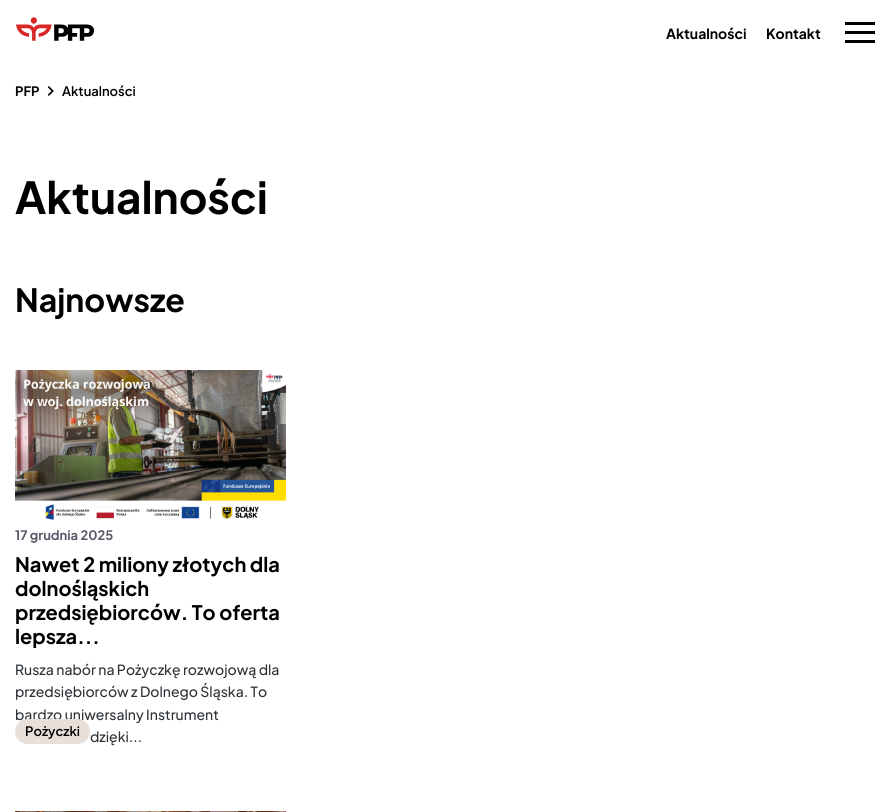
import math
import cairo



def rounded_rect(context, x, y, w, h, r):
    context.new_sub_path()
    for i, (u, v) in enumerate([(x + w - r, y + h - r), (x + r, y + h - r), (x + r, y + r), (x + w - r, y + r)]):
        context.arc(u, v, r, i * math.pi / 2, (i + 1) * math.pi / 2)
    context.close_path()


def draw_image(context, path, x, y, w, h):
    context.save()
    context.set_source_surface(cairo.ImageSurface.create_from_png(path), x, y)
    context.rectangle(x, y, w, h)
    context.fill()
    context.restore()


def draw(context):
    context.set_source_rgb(1, 1, 1)
    context.paint()
    draw_image(context, "images/1.png", 16, 17, 78, 24)
    context.set_source_rgb(0, 0, 0)
    context.rectangle(845, 22, 30, 3)
    context.fill()
    context.rectangle(845, 31, 30, 3)
    context.fill()
    context.rectangle(845, 40, 30, 3)
    context.fill()
    draw_image(context, "images/2.png", 47, 86, 7, 10)
    draw_image(context, "images/3.png", 15, 370, 271, 150)
    draw_image(context, "images/4.png", 15, 811, 271, 1)
    context.select_font_face("Plus Jakarta Sans", cairo.FontSlant.NORMAL, cairo.FontWeight.BOLD)
    context.set_font_size(14)
    context.move_to(666, 39)
    context.show_text("Aktualności")
    context.move_to(766, 39)
    context.show_text("Kontakt")
    context.set_font_size(13)
    context.move_to(15, 96)
    context.show_text("PFP")
    context.select_font_face("Plus Jakarta Sans SemiBold")
    context.move_to(62, 96)
    context.show_text("Aktualności")
    context.select_font_face("Plus Jakarta Sans", cairo.FontSlant.NORMAL, cairo.FontWeight.BOLD)
    context.set_font_size(44)
    context.move_to(15, 214)
    context.show_text("Aktualności")
    context.set_font_size(32)
    context.move_to(15, 312)
    context.show_text("Najnowsze")
    context.set_font_size(13)
    context.set_source_rgb(87 / 255, 90 / 255, 102 / 255)
    context.move_to(15, 540)
    context.show_text("17 grudnia 2025")
    context.set_font_size(20)
    context.set_source_rgb(0, 0, 0)
    context.move_to(15, 572)
    context.show_text("Nawet 2 miliony złotych dla")
    context.move_to(15, 596)
    context.show_text("dolnośląskich")
    context.move_to(15, 620)
    context.show_text("przedsiębiorców. To oferta")
    context.move_to(15, 644)
    context.show_text("lepsza...")
    context.select_font_face("Plus Jakarta Sans Medium")
    context.set_font_size(14)
    context.set_source_rgb(46 / 255, 51 / 255, 56 / 255)
    context.move_to(15, 675)
    context.show_text("Rusza nabór na Pożyczkę rozwojową dla")
    context.move_to(15, 697)
    context.show_text("przedsiębiorców z Dolnego Śląska. To")
    context.move_to(15, 720)
    context.show_text("bardzo uniwersalny Instrument")
    context.move_to(90, 742)
    context.show_text("dzięki...")
    context.set_source_rgb(232 / 255, 223 / 255, 217 / 255)
    rounded_rect(context, 15, 719, 75, 25, 12.5)
    context.fill()
    context.select_font_face("Plus Jakarta Sans SemiBold")
    context.set_font_size(13)
    context.set_source_rgb(0, 0, 0)
    context.move_to(25, 736)
    context.show_text("Pożyczki")


surface = cairo.ImageSurface(cairo.Format.RGB24, 891, 812)
context = cairo.Context(surface)
options = cairo.FontOptions()
options.set_hint_metrics(cairo.HintMetrics.OFF)
options.set_hint_style(cairo.HintStyle.NONE)
context.set_font_options(options)
context.set_miter_limit(4)
draw(context)
surface.write_to_png("out.png")
